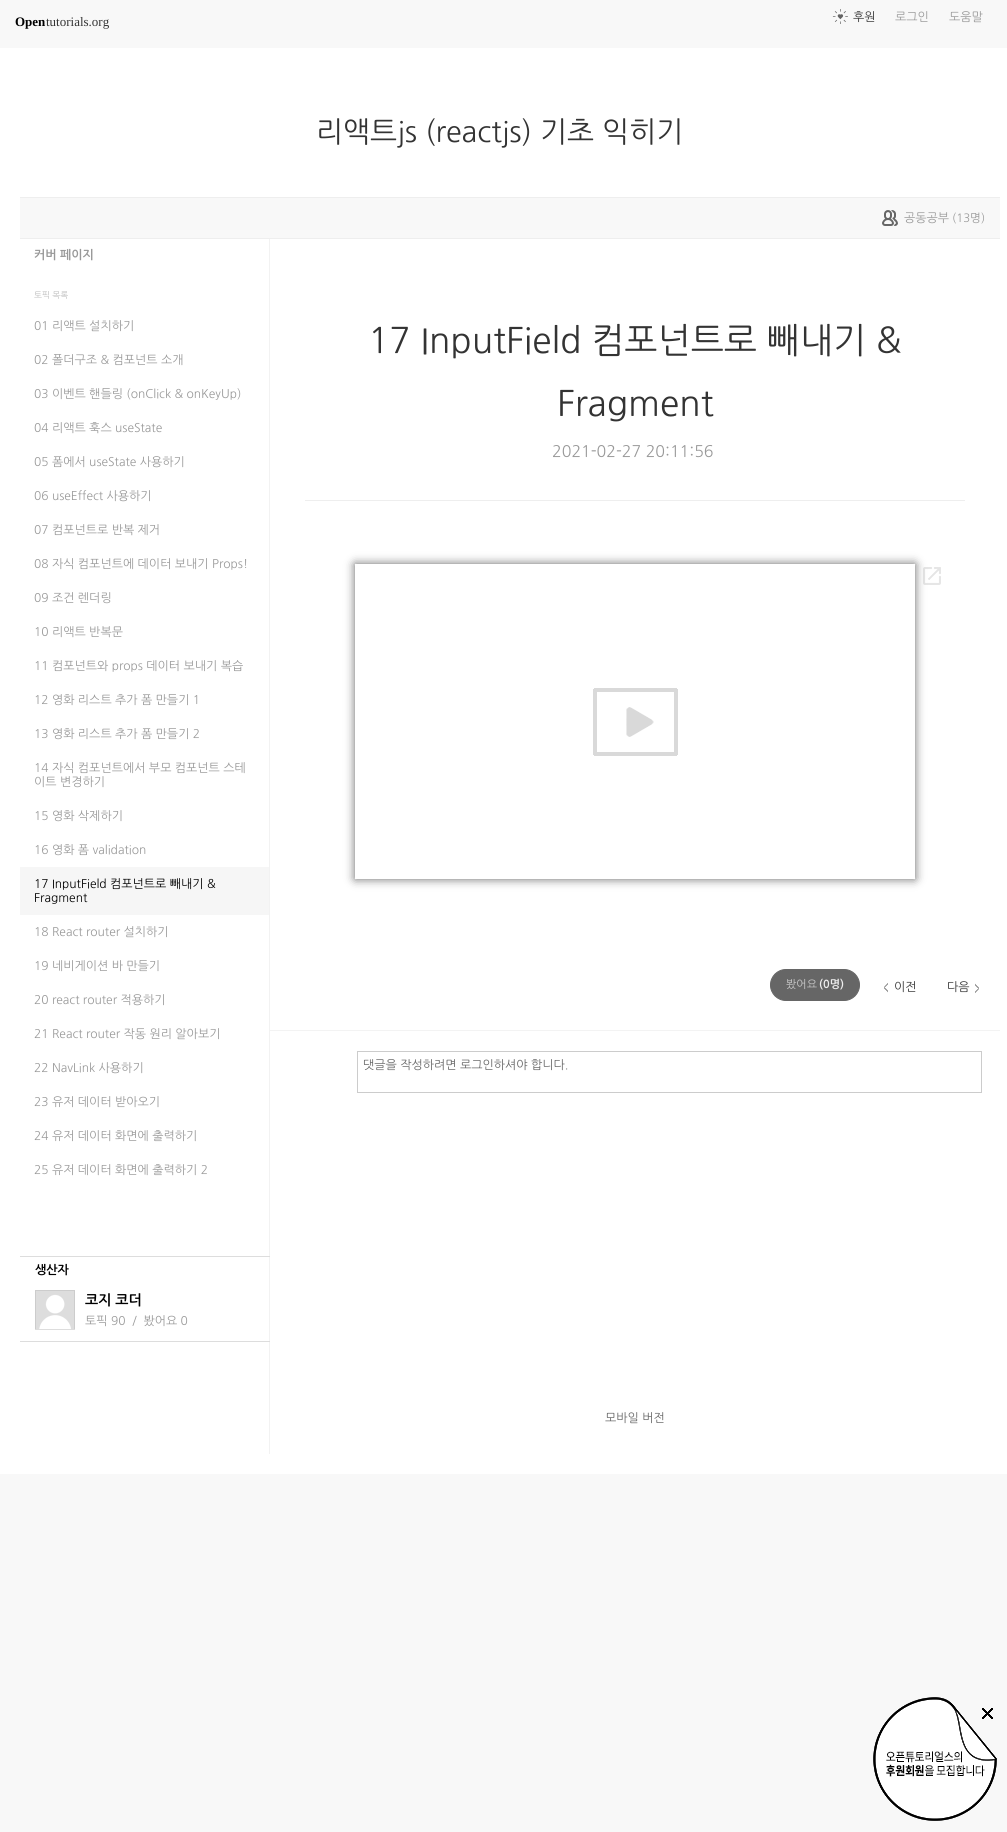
import math
import cairo



def rounded_rect(context, x, y, w, h, r):
    context.new_sub_path()
    for i, (u, v) in enumerate([(x + w - r, y + h - r), (x + r, y + h - r), (x + r, y + r), (x + w - r, y + r)]):
        context.arc(u, v, r, i * math.pi / 2, (i + 1) * math.pi / 2)
    context.close_path()


def draw_shadow(context, x, y, w, h, r, blur, alpha):
    context.push_group_with_content(cairo.Content.ALPHA)
    context.set_operator(cairo.Operator.SOURCE)
    for i in range(15, -16, -2):
        e = blur * i / 6
        if min(w, h) + 2 * e > 0:
            context.set_source_rgba(0, 0, 0, alpha * math.erfc((i - 1) / 8.5) / 2)
            rounded_rect(context, x - e, y - e, w + 2 * e, h + 2 * e, max(0, min(r + e + blur * .6, min(w, h) / 2 + e)))
            context.fill()
    context.mask(context.pop_group())


def draw_image(context, path, x, y, w, h):
    context.save()
    context.set_source_surface(cairo.ImageSurface.create_from_png(path), x, y)
    context.rectangle(x, y, w, h)
    context.fill()
    context.restore()


def draw(context):
    context.set_source_rgb(248 / 255, 248 / 255, 248 / 255)
    context.paint()
    draw_image(context, "images/1.png", 832, 9, 16, 15)
    context.set_source_rgb(1, 1, 1)
    context.rectangle(0, 48, 1007, 1426)
    context.fill()
    context.set_source_rgb(248 / 255, 248 / 255, 248 / 255)
    context.rectangle(20, 198, 980, 40)
    context.fill()
    context.set_source_rgb(238 / 255, 238 / 255, 238 / 255)
    context.rectangle(20, 197, 980, 1)
    context.fill()
    context.rectangle(20, 238, 980, 1)
    context.fill()
    draw_image(context, "images/2.png", 882, 210, 16, 16)
    context.set_source_rgb(242 / 255, 242 / 255, 242 / 255)
    context.rectangle(269, 239, 1, 1215)
    context.fill()
    context.set_source_rgb(246 / 255, 246 / 255, 246 / 255)
    context.rectangle(20, 867, 249, 48)
    context.fill()
    context.set_source_rgb(221 / 255, 221 / 255, 221 / 255)
    context.rectangle(20, 1256, 250, 1)
    context.fill()
    context.rectangle(20, 1341, 250, 1)
    context.fill()
    draw_image(context, "images/3.png", 35, 1290, 40, 40)
    context.set_source_rgb(238 / 255, 238 / 255, 238 / 255)
    context.rectangle(305, 500, 660, 1)
    context.fill()
    draw_image(context, "images/4.png", 593, 688, 85, 68)
    context.save()
    context.set_fill_rule(cairo.FillRule.EVEN_ODD)
    context.new_path()
    context.move_to(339, 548)
    context.line_to(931, 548)
    context.line_to(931, 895)
    context.line_to(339, 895)
    context.close_path()
    context.move_to(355, 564)
    context.line_to(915, 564)
    context.line_to(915, 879)
    context.line_to(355, 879)
    context.close_path()
    context.clip()
    context.set_source_rgb(102 / 255, 102 / 255, 102 / 255)
    draw_shadow(context, 355, 564, 560, 315, 0, 5, 1)
    context.restore()
    draw_image(context, "images/5.png", 923, 567, 18, 18)
    context.set_source_rgb(102 / 255, 102 / 255, 102 / 255)
    rounded_rect(context, 770.5, 969.5, 89, 31, 15.5)
    context.fill_preserve()
    context.set_line_width(1)
    context.stroke()
    draw_image(context, "images/6.png", 884, 983, 4, 10)
    draw_image(context, "images/7.png", 975, 983, 4, 10)
    context.set_source_rgb(243 / 255, 243 / 255, 243 / 255)
    context.rectangle(270, 1030, 730, 1)
    context.fill()
    context.rectangle(357.5, 1051.5, 624, 41)
    context.set_source_rgb(204 / 255, 204 / 255, 204 / 255)
    context.stroke()
    draw_image(context, "images/8.png", 873, 1697, 124, 124)
    draw_image(context, "images/9.png", 982, 1708, 11, 11)
    context.select_font_face("Liberation Serif", cairo.FontSlant.NORMAL, cairo.FontWeight.BOLD)
    context.set_font_size(13)
    context.set_source_rgb(0, 0, 0)
    context.move_to(15, 26)
    context.show_text("Open")
    context.select_font_face("Liberation Serif")
    context.set_source_rgb(51 / 255, 51 / 255, 51 / 255)
    context.move_to(46, 26)
    context.show_text("tutorials.org")
    context.select_font_face("NanumGothic")
    context.set_font_size(12)
    context.move_to(853, 21)
    context.show_text("후원")
    context.set_source_rgb(153 / 255, 153 / 255, 153 / 255)
    context.move_to(895, 21)
    context.show_text("로그인")
    context.move_to(949, 21)
    context.show_text("도움말")
    context.set_font_size(28.75)
    context.set_source_rgb(51 / 255, 51 / 255, 51 / 255)
    context.move_to(316, 142)
    context.show_text("리액트js (reactjs) 기초 익히기")
    context.set_font_size(12)
    context.set_source_rgb(153 / 255, 153 / 255, 153 / 255)
    context.move_to(904, 222)
    context.show_text("공동공부")
    context.set_font_size(11.5)
    context.move_to(952, 222)
    context.show_text("(13명)")
    context.select_font_face("NanumGothic", cairo.FontSlant.NORMAL, cairo.FontWeight.BOLD)
    context.set_font_size(12)
    context.move_to(34, 259)
    context.show_text("커버 페이지")
    context.select_font_face("NanumGothic")
    context.set_font_size(8.5)
    context.set_source_rgb(187 / 255, 187 / 255, 187 / 255)
    context.move_to(34, 298)
    context.show_text("토픽 목록")
    context.set_font_size(12)
    context.set_source_rgb(153 / 255, 153 / 255, 153 / 255)
    context.move_to(34, 330)
    context.show_text("01 리액트 설치하기")
    context.move_to(34, 364)
    context.show_text("02 폴더구조 & 컴포넌트 소개")
    context.move_to(34, 398)
    context.show_text("03 이벤트 핸들링 (onClick & onKeyUp)")
    context.move_to(34, 432)
    context.show_text("04 리액트 훅스 useState")
    context.move_to(34, 466)
    context.show_text("05 폼에서 useState 사용하기")
    context.move_to(34, 500)
    context.show_text("06 useEffect 사용하기")
    context.move_to(34, 534)
    context.show_text("07 컴포넌트로 반복 제거")
    context.move_to(34, 568)
    context.show_text("08 자식 컴포넌트에 데이터 보내기 Props!")
    context.move_to(34, 602)
    context.show_text("09 조건 렌더링")
    context.move_to(34, 636)
    context.show_text("10 리액트 반복문")
    context.move_to(34, 670)
    context.show_text("11 컴포넌트와 props 데이터 보내기 복습")
    context.move_to(34, 704)
    context.show_text("12 영화 리스트 추가 폼 만들기 1")
    context.move_to(34, 738)
    context.show_text("13 영화 리스트 추가 폼 만들기 2")
    context.move_to(34, 772)
    context.show_text("14 자식 컴포넌트에서 부모 컴포넌트 스테")
    context.move_to(34, 786)
    context.show_text("이트 변경하기")
    context.move_to(34, 820)
    context.show_text("15 영화 삭제하기")
    context.move_to(34, 854)
    context.show_text("16 영화 폼 validation")
    context.set_source_rgb(0, 0, 0)
    context.move_to(34, 888)
    context.show_text("17 InputField 컴포넌트로 빼내기 &")
    context.move_to(34, 902)
    context.show_text("Fragment")
    context.set_source_rgb(153 / 255, 153 / 255, 153 / 255)
    context.move_to(34, 936)
    context.show_text("18 React router 설치하기")
    context.move_to(34, 970)
    context.show_text("19 네비게이션 바 만들기")
    context.move_to(34, 1004)
    context.show_text("20 react router 적용하기")
    context.move_to(34, 1038)
    context.show_text("21 React router 작동 원리 알아보기")
    context.move_to(34, 1072)
    context.show_text("22 NavLink 사용하기")
    context.move_to(34, 1106)
    context.show_text("23 유저 데이터 받아오기")
    context.move_to(34, 1140)
    context.show_text("24 유저 데이터 화면에 출력하기")
    context.move_to(34, 1174)
    context.show_text("25 유저 데이터 화면에 출력하기 2")
    context.select_font_face("NanumGothic", cairo.FontSlant.NORMAL, cairo.FontWeight.BOLD)
    context.set_source_rgb(0, 0, 0)
    context.move_to(35, 1274)
    context.show_text("생산자")
    context.set_font_size(14)
    context.move_to(85, 1305)
    context.show_text("코지 코더")
    context.select_font_face("NanumGothic")
    context.set_font_size(12)
    context.set_source_rgb(153 / 255, 153 / 255, 153 / 255)
    context.move_to(85, 1325)
    context.show_text("토픽 90  /  봤어요 0")
    context.set_font_size(35.25)
    context.set_source_rgb(51 / 255, 51 / 255, 51 / 255)
    context.move_to(368, 353)
    context.show_text("17 InputField 컴포넌트로 빼내기 &")
    context.move_to(557, 416)
    context.show_text("Fragment")
    context.set_font_size(16)
    context.set_source_rgb(153 / 255, 153 / 255, 153 / 255)
    context.move_to(552, 457)
    context.show_text("2021-02-27 20:11:56")
    context.set_font_size(11)
    context.set_source_rgb(204 / 255, 204 / 255, 204 / 255)
    context.move_to(786, 988)
    context.show_text("봤어요")
    context.select_font_face("NanumGothic", cairo.FontSlant.NORMAL, cairo.FontWeight.BOLD)
    context.set_source_rgb(238 / 255, 238 / 255, 238 / 255)
    context.move_to(819, 988)
    context.show_text("(0명)")
    context.select_font_face("NanumGothic")
    context.set_font_size(12)
    context.set_source_rgb(51 / 255, 51 / 255, 51 / 255)
    context.move_to(894, 991)
    context.show_text("이전")
    context.move_to(947, 991)
    context.show_text("다음")
    context.set_source_rgb(102 / 255, 102 / 255, 102 / 255)
    context.move_to(363, 1069)
    context.show_text("댓글을 작성하려면 로그인하셔야 합니다.")
    context.move_to(605, 1422)
    context.show_text("모바일 버전")


surface = cairo.ImageSurface(cairo.Format.RGB24, 1007, 1832)
context = cairo.Context(surface)
options = cairo.FontOptions()
options.set_hint_metrics(cairo.HintMetrics.OFF)
options.set_hint_style(cairo.HintStyle.NONE)
context.set_font_options(options)
context.set_miter_limit(4)
draw(context)
surface.write_to_png("out.png")
